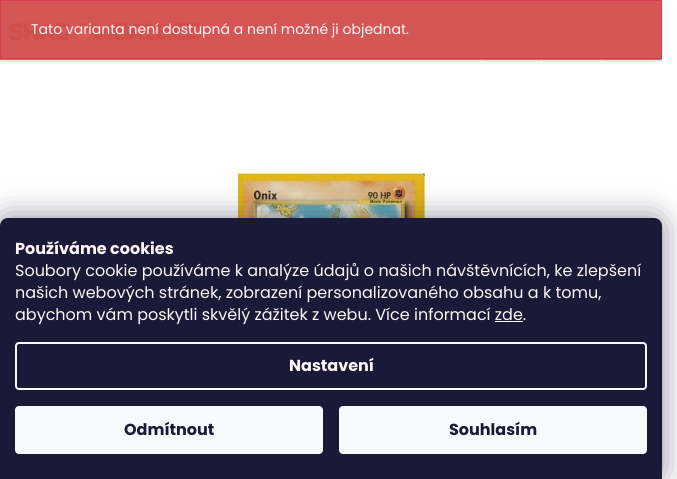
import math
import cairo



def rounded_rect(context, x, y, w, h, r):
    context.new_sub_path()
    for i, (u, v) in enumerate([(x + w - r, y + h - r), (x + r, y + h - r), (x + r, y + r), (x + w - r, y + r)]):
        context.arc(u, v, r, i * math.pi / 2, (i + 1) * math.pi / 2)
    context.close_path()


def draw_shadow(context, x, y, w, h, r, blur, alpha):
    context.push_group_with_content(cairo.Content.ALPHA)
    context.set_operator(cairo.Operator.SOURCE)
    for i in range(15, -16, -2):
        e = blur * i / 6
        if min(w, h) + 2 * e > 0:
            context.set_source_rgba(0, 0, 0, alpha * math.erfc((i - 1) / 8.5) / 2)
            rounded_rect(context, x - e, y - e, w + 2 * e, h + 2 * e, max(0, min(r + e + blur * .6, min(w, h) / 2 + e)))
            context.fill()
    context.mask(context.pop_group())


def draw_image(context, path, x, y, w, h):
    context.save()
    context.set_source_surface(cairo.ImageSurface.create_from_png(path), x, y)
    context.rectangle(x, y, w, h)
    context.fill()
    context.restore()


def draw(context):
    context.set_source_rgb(1, 1, 1)
    context.paint()
    context.set_source_rgb(0, 0, 0)
    draw_shadow(context, 0, 1, 662, 60, 0, 1, 0.16)
    context.set_source_rgb(114 / 255, 141 / 255, 192 / 255)
    context.rectangle(0, 59, 661, 1)
    context.fill()
    context.set_source_rgb(212 / 255, 86 / 255, 85 / 255)
    context.rectangle(1, 1, 660, 57)
    context.fill()
    draw_image(context, "images/1.png", 10, 19, 190, 22)
    context.set_source_rgb(156 / 255, 175 / 255, 211 / 255)
    context.rectangle(661, 59, 1, 1)
    context.fill()
    context.rectangle(481, 59, 1, 1)
    context.fill()
    context.set_source_rgb(214 / 255, 88 / 255, 86 / 255)
    context.rectangle(481, 0, 1, 59)
    context.fill()
    context.set_source_rgb(156 / 255, 175 / 255, 211 / 255)
    context.rectangle(541, 59, 1, 1)
    context.fill()
    context.set_source_rgb(214 / 255, 88 / 255, 86 / 255)
    context.rectangle(541, 0, 1, 59)
    context.fill()
    context.set_source_rgb(156 / 255, 175 / 255, 211 / 255)
    context.rectangle(601, 59, 1, 1)
    context.fill()
    context.set_source_rgb(214 / 255, 88 / 255, 86 / 255)
    context.rectangle(601, 0, 1, 59)
    context.fill()
    draw_image(context, "images/2.png", 236, 166, 191, 52)
    context.rectangle(0.5, 0.5, 661, 58)
    context.set_source_rgb(212 / 255, 59 / 255, 79 / 255)
    context.set_line_width(1)
    context.stroke()
    context.set_source_rgb(27 / 255, 25 / 255, 57 / 255)
    draw_shadow(context, 0, 218, 662, 261, 8, 15, 0.5)
    context.set_source_rgb(26 / 255, 25 / 255, 55 / 255)
    context.new_path()
    context.move_to(8, 218)
    context.line_to(654, 218)
    context.curve_to(658.5, 218, 662, 221.5, 662, 226)
    context.line_to(662, 479)
    context.line_to(0, 479)
    context.line_to(0, 226)
    context.curve_to(0, 221.5, 3.5, 218, 8, 218)
    context.close_path()
    context.fill()
    rounded_rect(context, 16, 343, 630, 46, 3)
    context.set_source_rgb(248 / 255, 250 / 255, 251 / 255)
    context.set_line_width(2)
    context.stroke()
    rounded_rect(context, 15, 406, 308, 48, 4)
    context.fill()
    rounded_rect(context, 339, 406, 308, 48, 4)
    context.fill()
    context.select_font_face("Poppins")
    context.set_font_size(14)
    context.set_source_rgb(253 / 255, 246 / 255, 246 / 255)
    context.move_to(31, 34)
    context.show_text("Tato varianta není dostupná a není možné ji objednat.")
    context.select_font_face("Poppins", cairo.FontSlant.NORMAL, cairo.FontWeight.BOLD)
    context.set_font_size(16)
    context.move_to(15, 254)
    context.show_text("Používáme cookies")
    context.select_font_face("Poppins")
    context.move_to(15, 276)
    context.show_text("Soubory cookie používáme k analýze údajů o našich návštěvnících, ke zlepšení")
    context.move_to(15, 298)
    context.show_text("našich webových stránek, zobrazení personalizovaného obsahu a k tomu,")
    context.move_to(15, 320)
    context.show_text("abychom vám poskytli skvělý zážitek z webu. Více informací zde.")
    context.set_source_rgb(248 / 255, 250 / 255, 251 / 255)
    context.rectangle(495, 321, 28, 1)
    context.fill()
    context.select_font_face("Poppins", cairo.FontSlant.NORMAL, cairo.FontWeight.BOLD)
    context.set_source_rgb(253 / 255, 246 / 255, 246 / 255)
    context.move_to(289, 371)
    context.show_text("Nastavení")
    context.set_source_rgb(26 / 255, 25 / 255, 55 / 255)
    context.move_to(124, 435)
    context.show_text("Odmítnout")
    context.move_to(449, 435)
    context.show_text("Souhlasím")


surface = cairo.ImageSurface(cairo.Format.RGB24, 677, 479)
context = cairo.Context(surface)
options = cairo.FontOptions()
options.set_hint_metrics(cairo.HintMetrics.OFF)
options.set_hint_style(cairo.HintStyle.NONE)
context.set_font_options(options)
context.set_miter_limit(4)
draw(context)
surface.write_to_png("out.png")
